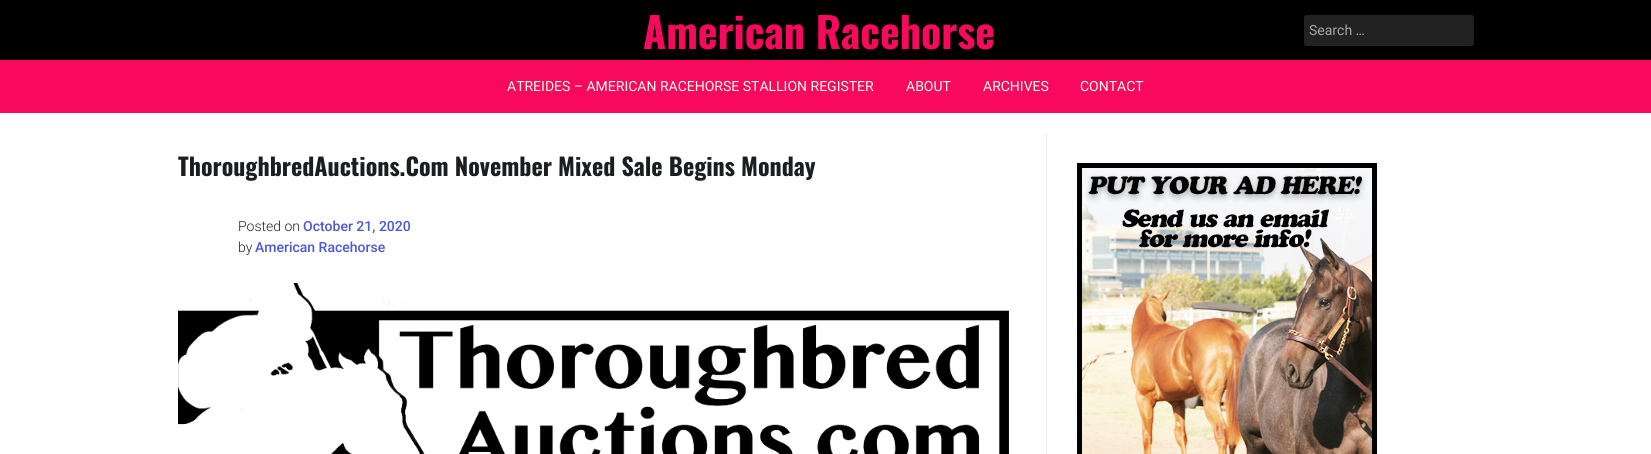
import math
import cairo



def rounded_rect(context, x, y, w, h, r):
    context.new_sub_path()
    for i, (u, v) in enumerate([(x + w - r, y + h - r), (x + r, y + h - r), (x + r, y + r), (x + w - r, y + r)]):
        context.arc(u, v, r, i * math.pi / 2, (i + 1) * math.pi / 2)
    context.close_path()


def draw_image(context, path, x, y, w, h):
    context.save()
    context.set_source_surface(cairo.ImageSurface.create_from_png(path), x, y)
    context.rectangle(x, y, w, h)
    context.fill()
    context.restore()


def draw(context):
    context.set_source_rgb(1, 1, 1)
    context.paint()
    context.set_source_rgb(0, 0, 0)
    context.rectangle(0, 0, 1651, 60)
    context.fill()
    context.set_source_rgb(34 / 255, 34 / 255, 34 / 255)
    rounded_rect(context, 1304, 15, 170, 31, 3)
    context.fill()
    context.new_path()
    context.move_to(1307, 16)
    context.line_to(1471, 16)
    context.curve_to(1472, 16, 1473, 17, 1473, 18)
    context.line_to(1473, 43)
    context.curve_to(1473, 44, 1472, 45, 1471, 45)
    context.line_to(1307, 45)
    context.curve_to(1306, 45, 1305, 44, 1305, 43)
    context.line_to(1305, 18)
    context.curve_to(1305, 17, 1306, 16, 1307, 16)
    context.close_path()
    context.set_dash([2, 2])
    context.stroke()
    context.set_source_rgb(249 / 255, 9 / 255, 93 / 255)
    context.rectangle(0, 60, 1651, 53)
    context.fill()
    draw_image(context, "images/1.png", 178, 283, 831, 171)
    context.set_source_rgb(238 / 255, 238 / 255, 238 / 255)
    context.rectangle(1046, 133, 1, 321)
    context.fill()
    draw_image(context, "images/2.png", 1077, 163, 300, 291)
    context.select_font_face("Oswald", cairo.FontSlant.NORMAL, cairo.FontWeight.BOLD)
    context.set_font_size(42)
    context.set_source_rgb(249 / 255, 9 / 255, 93 / 255)
    context.move_to(643, 49)
    context.show_text("American Racehorse")
    context.select_font_face("Roboto")
    context.set_font_size(14)
    context.set_source_rgb(167 / 255, 167 / 255, 167 / 255)
    context.move_to(1309, 35)
    context.show_text("Search …")
    context.set_source_rgb(249 / 255, 1, 231 / 255)
    context.move_to(507, 91)
    context.show_text("ATREIDES – AMERICAN RACEHORSE STALLION REGISTER")
    context.move_to(906, 91)
    context.show_text("ABOUT")
    context.move_to(983, 91)
    context.show_text("ARCHIVES")
    context.move_to(1080, 91)
    context.show_text("CONTACT")
    context.select_font_face("Oswald", cairo.FontSlant.NORMAL, cairo.FontWeight.BOLD)
    context.set_font_size(24)
    context.set_source_rgb(26 / 255, 30 / 255, 33 / 255)
    context.move_to(178, 176)
    context.show_text("ThoroughbredAuctions.Com November Mixed Sale Begins Monday")
    context.select_font_face("Roboto Light")
    context.set_font_size(14)
    context.set_source_rgb(33 / 255, 37 / 255, 41 / 255)
    context.move_to(238, 231)
    context.show_text("Posted on")
    context.select_font_face("Roboto Medium")
    context.set_source_rgb(74 / 255, 88 / 255, 217 / 255)
    context.move_to(303, 231)
    context.show_text("October 21, 2020")
    context.select_font_face("Roboto Light")
    context.set_source_rgb(33 / 255, 37 / 255, 41 / 255)
    context.move_to(238, 252)
    context.show_text("by")
    context.select_font_face("Roboto Medium")
    context.set_source_rgb(74 / 255, 88 / 255, 217 / 255)
    context.move_to(255, 252)
    context.show_text("American Racehorse")


surface = cairo.ImageSurface(cairo.Format.RGB24, 1651, 454)
context = cairo.Context(surface)
options = cairo.FontOptions()
options.set_hint_metrics(cairo.HintMetrics.OFF)
options.set_hint_style(cairo.HintStyle.NONE)
context.set_font_options(options)
context.set_miter_limit(4)
draw(context)
surface.write_to_png("out.png")
